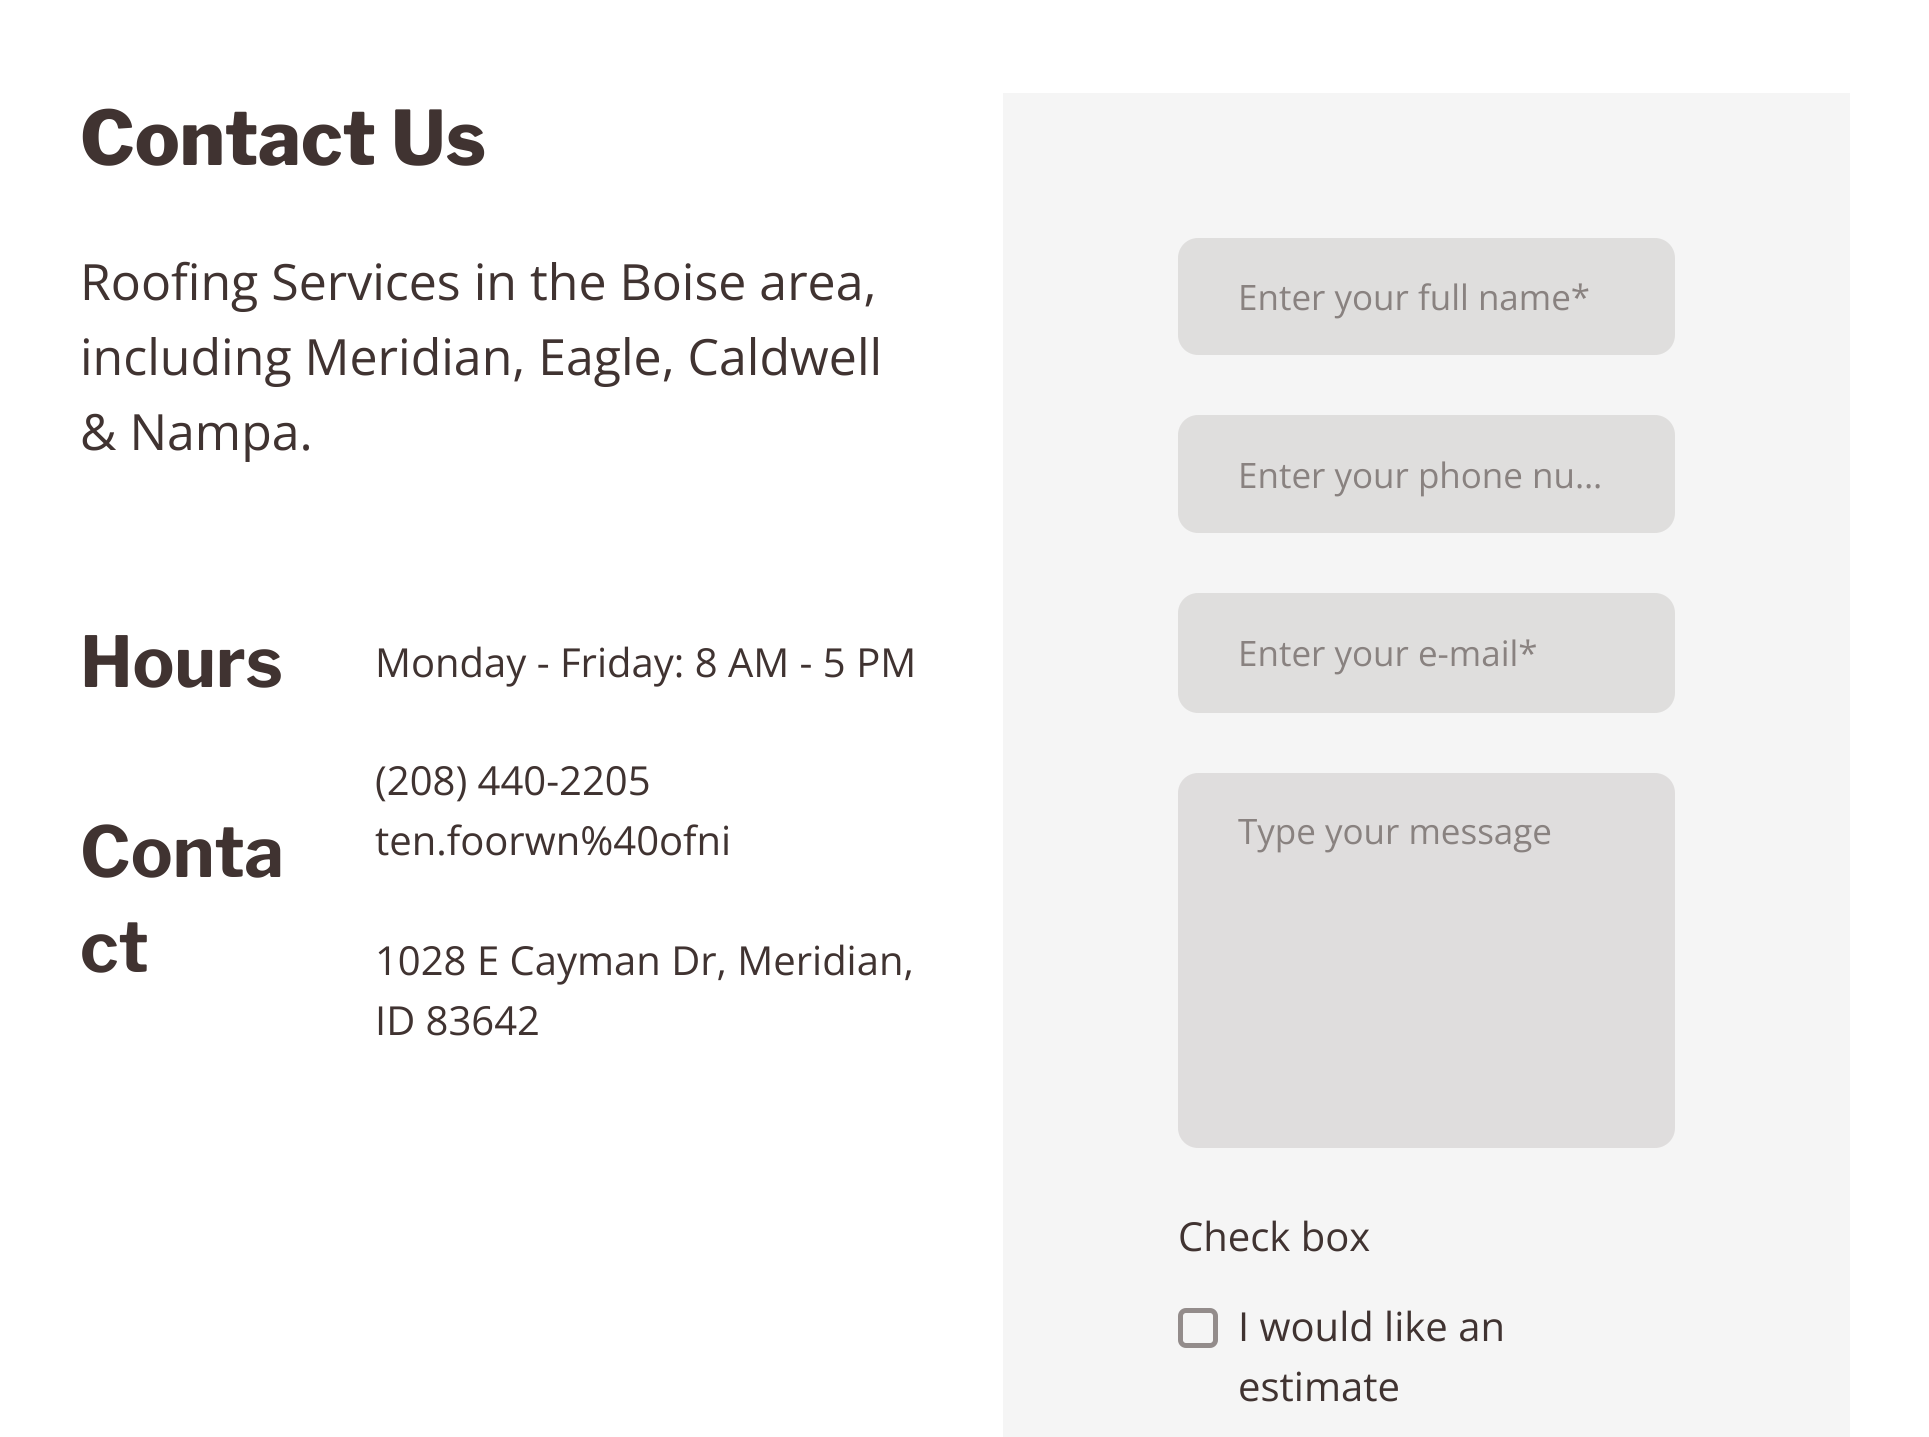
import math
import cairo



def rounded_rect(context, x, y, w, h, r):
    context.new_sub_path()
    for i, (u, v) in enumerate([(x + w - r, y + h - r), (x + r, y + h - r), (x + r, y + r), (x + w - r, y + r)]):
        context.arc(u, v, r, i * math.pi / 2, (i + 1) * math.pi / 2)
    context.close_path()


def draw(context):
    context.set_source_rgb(1, 1, 1)
    context.paint()
    context.set_source_rgb(245 / 255, 245 / 255, 245 / 255)
    context.rectangle(1003, 93, 847, 1344)
    context.fill()
    context.set_source_rgb(223 / 255, 222 / 255, 221 / 255)
    rounded_rect(context, 1178, 238, 497, 117, 20)
    context.fill()
    rounded_rect(context, 1178, 415, 497, 118, 20)
    context.fill()
    rounded_rect(context, 1178, 593, 497, 120, 20)
    context.fill()
    context.set_source_rgb(223 / 255, 221 / 255, 221 / 255)
    rounded_rect(context, 1178, 773, 497, 375, 20)
    context.fill()
    rounded_rect(context, 1180.5, 1310.5, 35, 35, 5.5)
    context.set_source_rgb(147 / 255, 140 / 255, 139 / 255)
    context.set_line_width(5)
    context.stroke()
    context.select_font_face("Libre Franklin ExtraBold")
    context.set_font_size(75)
    context.set_source_rgb(64 / 255, 51 / 255, 49 / 255)
    context.move_to(80, 165)
    context.show_text("Contact Us")
    context.select_font_face("Open Sans")
    context.set_font_size(50)
    context.move_to(80, 300)
    context.show_text("Roofing Services in the Boise area,")
    context.move_to(80, 375)
    context.show_text("including Meridian, Eagle, Caldwell")
    context.move_to(80, 450)
    context.show_text("& Nampa.")
    context.select_font_face("Libre Franklin", cairo.FontSlant.NORMAL, cairo.FontWeight.BOLD)
    context.set_font_size(70)
    context.move_to(80, 687)
    context.show_text("Hours")
    context.select_font_face("Open Sans")
    context.set_font_size(40)
    context.move_to(375, 677)
    context.show_text("Monday - Friday: 8 AM - 5 PM")
    context.select_font_face("Libre Franklin", cairo.FontSlant.NORMAL, cairo.FontWeight.BOLD)
    context.set_font_size(70)
    context.move_to(80, 877)
    context.show_text("Conta")
    context.move_to(80, 972)
    context.show_text("ct")
    context.select_font_face("Open Sans")
    context.set_font_size(40)
    context.move_to(375, 795)
    context.show_text("(208) 440-2205")
    context.move_to(375, 855)
    context.show_text("ten.foorwn%40ofni")
    context.move_to(375, 975)
    context.show_text("1028 E Cayman Dr, Meridian,")
    context.move_to(375, 1035)
    context.show_text("ID 83642")
    context.set_font_size(35)
    context.set_source_rgb(137 / 255, 130 / 255, 128 / 255)
    context.move_to(1238, 310)
    context.show_text("Enter your full name*")
    context.move_to(1238, 488)
    context.show_text("Enter your phone nu…")
    context.move_to(1238, 666)
    context.show_text("Enter your e-mail*")
    context.move_to(1238, 844)
    context.show_text("Type your message")
    context.set_font_size(40)
    context.set_source_rgb(64 / 255, 51 / 255, 49 / 255)
    context.move_to(1178, 1251)
    context.show_text("Check box")
    context.move_to(1238, 1341)
    context.show_text("I would like an")
    context.move_to(1238, 1401)
    context.show_text("estimate")


surface = cairo.ImageSurface(cairo.Format.RGB24, 1929, 1437)
context = cairo.Context(surface)
options = cairo.FontOptions()
options.set_hint_metrics(cairo.HintMetrics.OFF)
options.set_hint_style(cairo.HintStyle.NONE)
context.set_font_options(options)
context.set_miter_limit(4)
draw(context)
surface.write_to_png("out.png")
